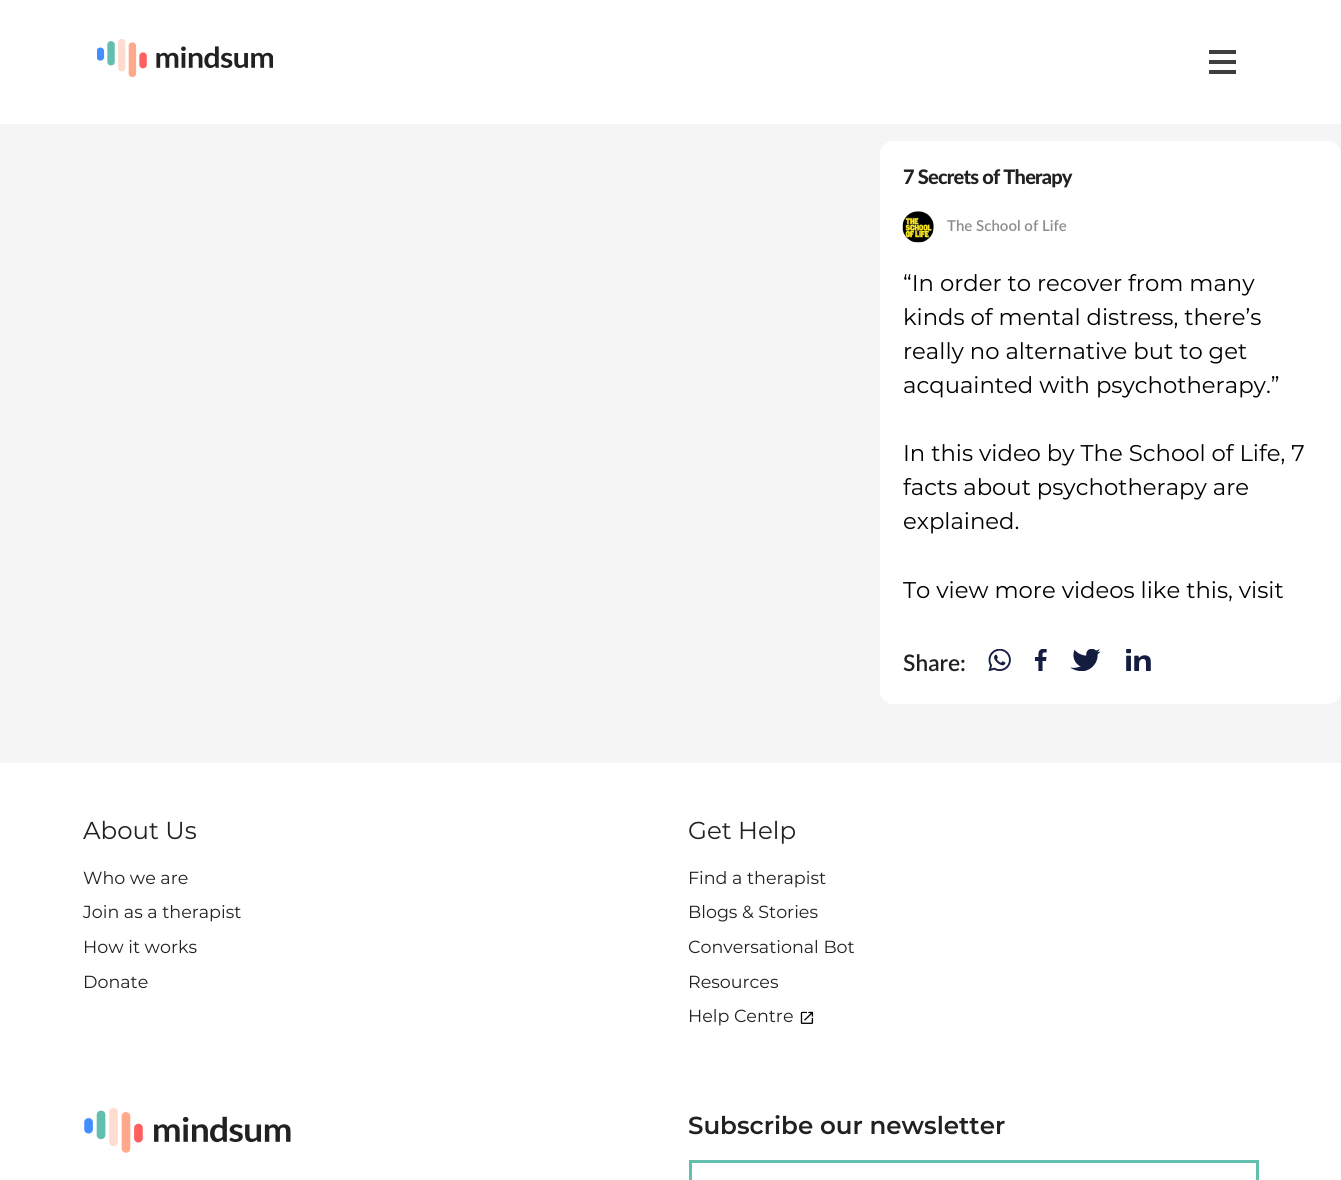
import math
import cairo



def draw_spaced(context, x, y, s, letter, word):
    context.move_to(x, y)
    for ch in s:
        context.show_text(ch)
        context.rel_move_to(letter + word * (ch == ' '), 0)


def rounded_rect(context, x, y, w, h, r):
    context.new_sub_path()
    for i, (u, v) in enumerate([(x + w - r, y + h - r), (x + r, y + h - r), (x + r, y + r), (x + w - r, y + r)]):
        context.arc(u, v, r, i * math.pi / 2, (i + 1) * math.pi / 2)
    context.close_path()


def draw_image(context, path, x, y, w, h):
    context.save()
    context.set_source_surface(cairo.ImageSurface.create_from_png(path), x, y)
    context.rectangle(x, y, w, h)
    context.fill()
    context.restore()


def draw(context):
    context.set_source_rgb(1, 1, 1)
    context.paint()
    draw_image(context, "images/1.png", 97, 39, 176, 38)
    context.set_source_rgb(63 / 255, 63 / 255, 63 / 255)
    context.rectangle(1209, 50, 27, 4)
    context.fill()
    context.rectangle(1209, 60, 27, 4)
    context.fill()
    context.rectangle(1209, 70, 27, 4)
    context.fill()
    context.set_source_rgb(245 / 255, 245 / 255, 245 / 255)
    context.rectangle(0, 124, 1341, 639)
    context.fill()
    context.set_source_rgb(1, 1, 1)
    rounded_rect(context, 880, 141, 461, 563, 13)
    context.fill()
    draw_image(context, "images/2.png", 902, 211, 32, 32)
    draw_image(context, "images/3.png", 988, 649, 23, 22)
    draw_image(context, "images/4.png", 1034, 649, 13, 22)
    draw_image(context, "images/5.png", 1070, 649, 31, 22)
    draw_image(context, "images/6.png", 1126, 649, 25, 22)
    draw_image(context, "images/7.png", 800, 1011, 14, 13)
    draw_image(context, "images/8.png", 84, 1108, 207, 45)
    context.rectangle(690.5, 1161.5, 567, 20)
    context.set_source_rgb(98 / 255, 191 / 255, 173 / 255)
    context.set_line_width(3)
    context.stroke()
    context.select_font_face("Lato Black")
    context.set_font_size(20)
    context.set_source_rgb(33 / 255, 33 / 255, 33 / 255)
    draw_spaced(context, 903, 184, "7 Secrets of Therapy", -0.8, 0)
    context.select_font_face("Lato SemiBold")
    context.set_font_size(15)
    context.set_source_rgb(140 / 255, 140 / 255, 140 / 255)
    context.move_to(947, 231)
    context.show_text("The School of Life")
    context.select_font_face("Montserrat")
    context.set_font_size(22.75)
    context.set_source_rgb(0, 0, 0)
    context.move_to(903, 291)
    context.show_text("“In order to recover from many")
    context.move_to(903, 325)
    context.show_text("kinds of mental distress, there’s")
    context.move_to(903, 359)
    context.show_text("really no alternative but to get")
    context.move_to(903, 393)
    context.show_text("acquainted with psychotherapy.”")
    context.move_to(903, 461)
    context.show_text("In this video by The School of Life, 7")
    context.move_to(903, 495)
    context.show_text("facts about psychotherapy are")
    context.move_to(903, 529)
    context.show_text("explained.")
    context.move_to(903, 598)
    context.show_text("To view more videos like this, visit")
    context.select_font_face("Lato SemiBold")
    context.set_source_rgb(33 / 255, 33 / 255, 33 / 255)
    context.move_to(903, 671)
    context.show_text("Share:")
    context.select_font_face("Montserrat")
    context.set_font_size(24.5)
    context.move_to(83, 839)
    context.show_text("About Us")
    context.set_font_size(17.5)
    context.move_to(83, 884)
    context.show_text("Who we are")
    context.move_to(83, 918)
    context.show_text("Join as a therapist")
    context.move_to(83, 953)
    context.show_text("How it works")
    context.move_to(83, 988)
    context.show_text("Donate")
    context.set_font_size(24.5)
    context.move_to(688, 839)
    context.show_text("Get Help")
    context.set_font_size(17.5)
    context.move_to(688, 884)
    context.show_text("Find a therapist")
    context.move_to(688, 918)
    context.show_text("Blogs & Stories")
    context.move_to(688, 953)
    context.show_text("Conversational Bot")
    context.move_to(688, 988)
    context.show_text("Resources")
    context.move_to(688, 1022)
    context.show_text("Help Centre")
    context.select_font_face("Montserrat SemiBold")
    context.set_font_size(24.5)
    context.move_to(688, 1134)
    context.show_text("Subscribe our newsletter")


surface = cairo.ImageSurface(cairo.Format.RGB24, 1341, 1180)
context = cairo.Context(surface)
options = cairo.FontOptions()
options.set_hint_metrics(cairo.HintMetrics.OFF)
options.set_hint_style(cairo.HintStyle.NONE)
context.set_font_options(options)
context.set_miter_limit(4)
draw(context)
surface.write_to_png("out.png")
